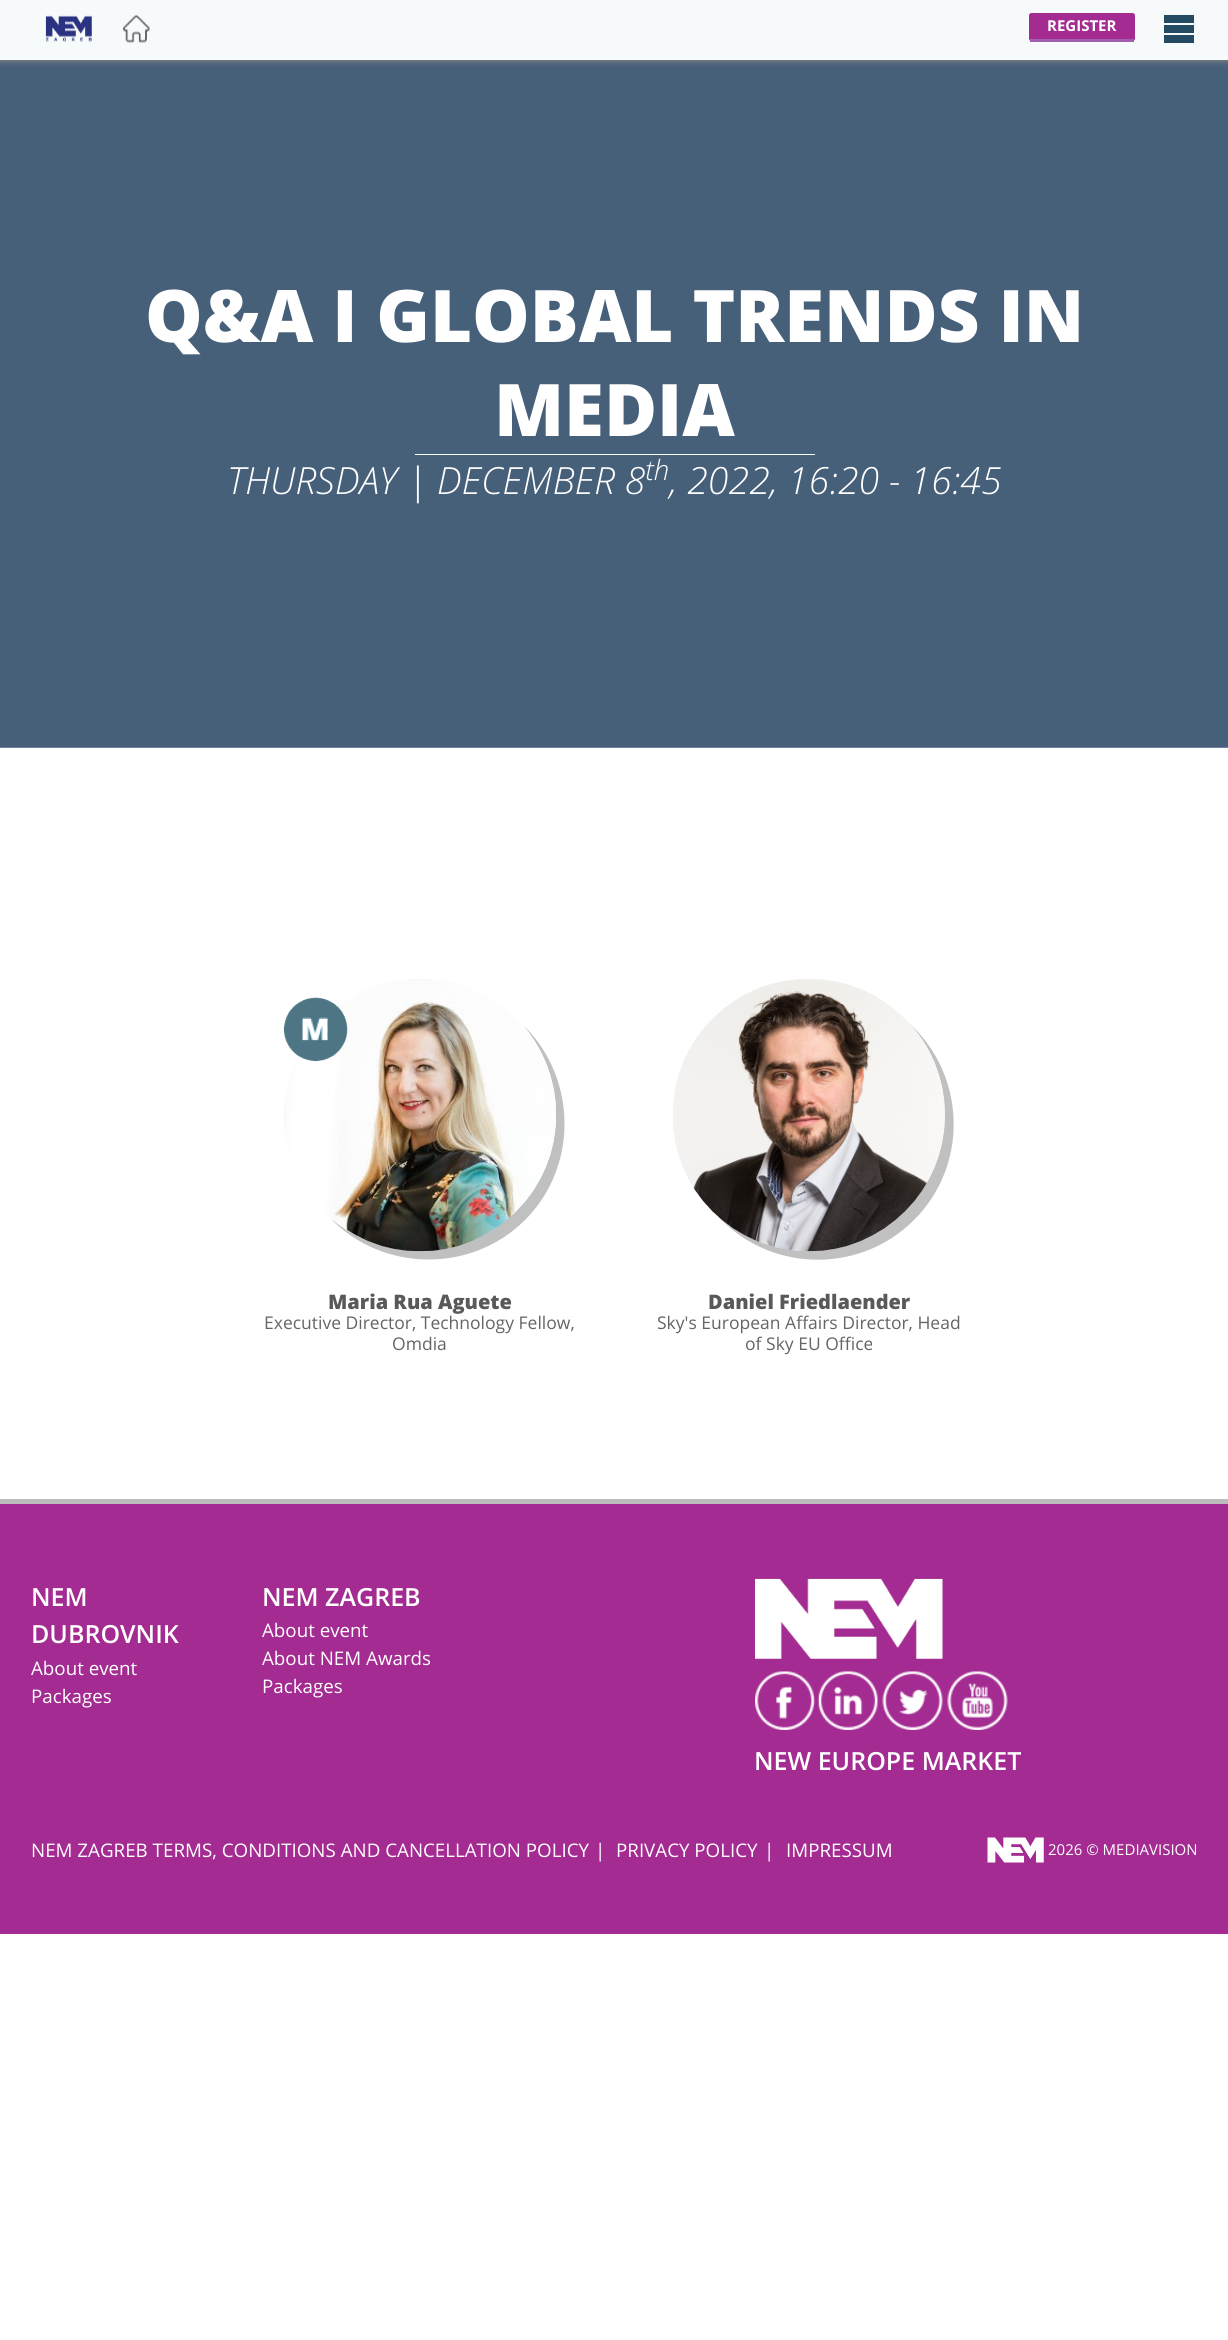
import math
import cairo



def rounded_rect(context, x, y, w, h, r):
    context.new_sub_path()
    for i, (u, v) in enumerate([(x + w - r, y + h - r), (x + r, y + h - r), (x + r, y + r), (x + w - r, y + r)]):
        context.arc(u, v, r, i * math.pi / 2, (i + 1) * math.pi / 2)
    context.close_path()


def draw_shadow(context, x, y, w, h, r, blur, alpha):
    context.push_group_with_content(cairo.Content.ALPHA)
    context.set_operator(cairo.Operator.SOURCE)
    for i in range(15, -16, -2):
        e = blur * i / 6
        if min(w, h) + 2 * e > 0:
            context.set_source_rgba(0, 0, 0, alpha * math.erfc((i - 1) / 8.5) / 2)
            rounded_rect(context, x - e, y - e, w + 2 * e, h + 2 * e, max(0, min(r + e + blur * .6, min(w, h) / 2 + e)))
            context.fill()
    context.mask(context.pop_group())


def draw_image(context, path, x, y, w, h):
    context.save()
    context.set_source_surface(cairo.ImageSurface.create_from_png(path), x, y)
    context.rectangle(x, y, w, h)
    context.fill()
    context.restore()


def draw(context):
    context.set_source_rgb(1, 1, 1)
    context.paint()
    context.set_source_rgb(124 / 255, 143 / 255, 164 / 255)
    context.rectangle(0, 747, 1228, 1)
    context.fill()
    draw_image(context, "images/3.png", 0, 60, 1228, 688)
    context.set_source_rgb(134 / 255, 134 / 255, 134 / 255)
    draw_shadow(context, 0, 1, 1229, 60, 0, 3, 1)
    context.set_source_rgb(246 / 255, 250 / 255, 251 / 255)
    context.rectangle(0, 0, 1228, 60)
    context.fill()
    draw_image(context, "images/1.png", 45, 15, 47, 27)
    draw_image(context, "images/2.png", 123, 15, 27, 28)
    context.set_source_rgb(163 / 255, 43 / 255, 145 / 255)
    rounded_rect(context, 1029, 13, 106, 28, 2.5)
    context.fill()
    context.set_source_rgb(162 / 255, 93 / 255, 174 / 255)
    context.rectangle(1030, 39, 104, 3)
    context.fill()
    context.set_source_rgb(36 / 255, 75 / 255, 98 / 255)
    context.rectangle(1164, 15, 30, 8)
    context.fill()
    context.rectangle(1164, 25, 30, 8)
    context.fill()
    context.rectangle(1164, 35, 30, 8)
    context.fill()
    context.set_source_rgb(1, 1, 1)
    context.rectangle(415, 454, 400, 1)
    context.fill()
    context.set_source_rgb(192 / 255, 192 / 255, 192 / 255)
    context.new_path()
    context.move_to(330, 1218)
    context.curve_to(382, 1272, 471, 1274, 525, 1220)
    context.curve_to(579, 1166, 577, 1077, 523, 1025)
    context.curve_to(569, 1079, 567, 1160, 516, 1211)
    context.curve_to(465, 1262, 384, 1264, 330, 1218)
    context.close_path()
    context.fill()
    draw_image(context, "images/5.png", 284, 979, 272, 273)
    draw_image(context, "images/4.png", 283, 997, 65, 65)
    context.new_path()
    context.move_to(715, 1213)
    context.curve_to(766, 1272, 858, 1276, 914, 1220)
    context.curve_to(969, 1165, 966, 1076, 910, 1024)
    context.curve_to(958, 1077, 956, 1160, 905, 1211)
    context.curve_to(853, 1264, 767, 1264, 715, 1213)
    context.close_path()
    context.fill()
    draw_image(context, "images/6.png", 673, 979, 272, 273)
    context.set_source_rgb(163 / 255, 43 / 255, 145 / 255)
    context.rectangle(0, 1504, 1228, 430)
    context.fill()
    context.set_source_rgb(189 / 255, 189 / 255, 189 / 255)
    context.rectangle(0, 1499, 1228, 5)
    context.fill()
    draw_image(context, "images/7.png", 755, 1578, 188, 81)
    draw_image(context, "images/8.png", 755, 1671, 60, 59)
    draw_image(context, "images/9.png", 818, 1671, 60, 59)
    draw_image(context, "images/10.png", 882, 1671, 61, 59)
    draw_image(context, "images/11.png", 947, 1671, 61, 59)
    draw_image(context, "images/12.png", 987, 1837, 57, 26)
    context.select_font_face("Open Sans", cairo.FontSlant.NORMAL, cairo.FontWeight.BOLD)
    context.set_font_size(15)
    context.set_source_rgb(1, 1, 1)
    context.move_to(1047, 31)
    context.show_text("REGISTER")
    context.select_font_face("Open Sans ExtraBold")
    context.set_font_size(72.5)
    context.move_to(145, 342)
    context.show_text("Q&A I GLOBAL TRENDS IN")
    context.move_to(494, 436)
    context.show_text("MEDIA")
    context.select_font_face("Open Sans Light", cairo.FontSlant.ITALIC)
    context.set_font_size(37.5)
    context.move_to(227, 494)
    context.show_text("THURSDAY | DECEMBER 8")
    context.move_to(669, 494)
    context.show_text(", 2022, 16:20 - 16:45")
    context.set_font_size(28)
    context.move_to(645, 480)
    context.show_text("th")
    context.select_font_face("Open Sans ExtraBold")
    context.set_font_size(20)
    context.set_source_rgb(89 / 255, 89 / 255, 89 / 255)
    context.move_to(328, 1309)
    context.show_text("Maria Rua Aguete")
    context.select_font_face("Open Sans")
    context.set_font_size(17.5)
    context.set_source_rgb(101 / 255, 101 / 255, 101 / 255)
    context.move_to(264, 1329)
    context.show_text("Executive Director, Technology Fellow,")
    context.move_to(392, 1350)
    context.show_text("Omdia")
    context.select_font_face("Open Sans ExtraBold")
    context.set_font_size(20)
    context.set_source_rgb(89 / 255, 89 / 255, 89 / 255)
    context.move_to(708, 1309)
    context.show_text("Daniel Friedlaender")
    context.select_font_face("Open Sans")
    context.set_font_size(17.5)
    context.set_source_rgb(101 / 255, 101 / 255, 101 / 255)
    context.move_to(657, 1329)
    context.show_text("Sky's European Affairs Director, Head")
    context.move_to(745, 1350)
    context.show_text("of Sky EU Office")
    context.select_font_face("Open Sans SemiBold")
    context.set_font_size(25)
    context.set_source_rgb(1, 1, 1)
    context.move_to(31, 1606)
    context.show_text("NEM")
    context.move_to(31, 1643)
    context.show_text("DUBROVNIK")
    context.select_font_face("Open Sans")
    context.set_font_size(18.75)
    context.move_to(31, 1675)
    context.show_text("About event")
    context.move_to(31, 1703)
    context.show_text("Packages")
    context.select_font_face("Open Sans SemiBold")
    context.set_font_size(25)
    context.move_to(262, 1606)
    context.show_text("NEM ZAGREB")
    context.select_font_face("Open Sans")
    context.set_font_size(18.75)
    context.move_to(262, 1637)
    context.show_text("About event")
    context.move_to(262, 1665)
    context.show_text("About NEM Awards")
    context.move_to(262, 1693)
    context.show_text("Packages")
    context.select_font_face("Open Sans SemiBold")
    context.set_font_size(25)
    context.move_to(754, 1770)
    context.show_text("NEW EUROPE MARKET")
    context.select_font_face("Open Sans")
    context.set_font_size(18.75)
    context.move_to(31, 1857)
    context.show_text("NEM ZAGREB TERMS, CONDITIONS AND CANCELLATION POLICY")
    context.move_to(595, 1857)
    context.show_text("|")
    context.move_to(616, 1857)
    context.show_text("PRIVACY POLICY")
    context.move_to(764, 1857)
    context.show_text("|")
    context.move_to(786, 1857)
    context.show_text("IMPRESSUM")
    context.set_font_size(15)
    context.move_to(1048, 1855)
    context.show_text("2026 © MEDIAVISION")


surface = cairo.ImageSurface(cairo.Format.RGB24, 1228, 2340)
context = cairo.Context(surface)
options = cairo.FontOptions()
options.set_hint_metrics(cairo.HintMetrics.OFF)
options.set_hint_style(cairo.HintStyle.NONE)
context.set_font_options(options)
context.set_miter_limit(4)
draw(context)
surface.write_to_png("out.png")
